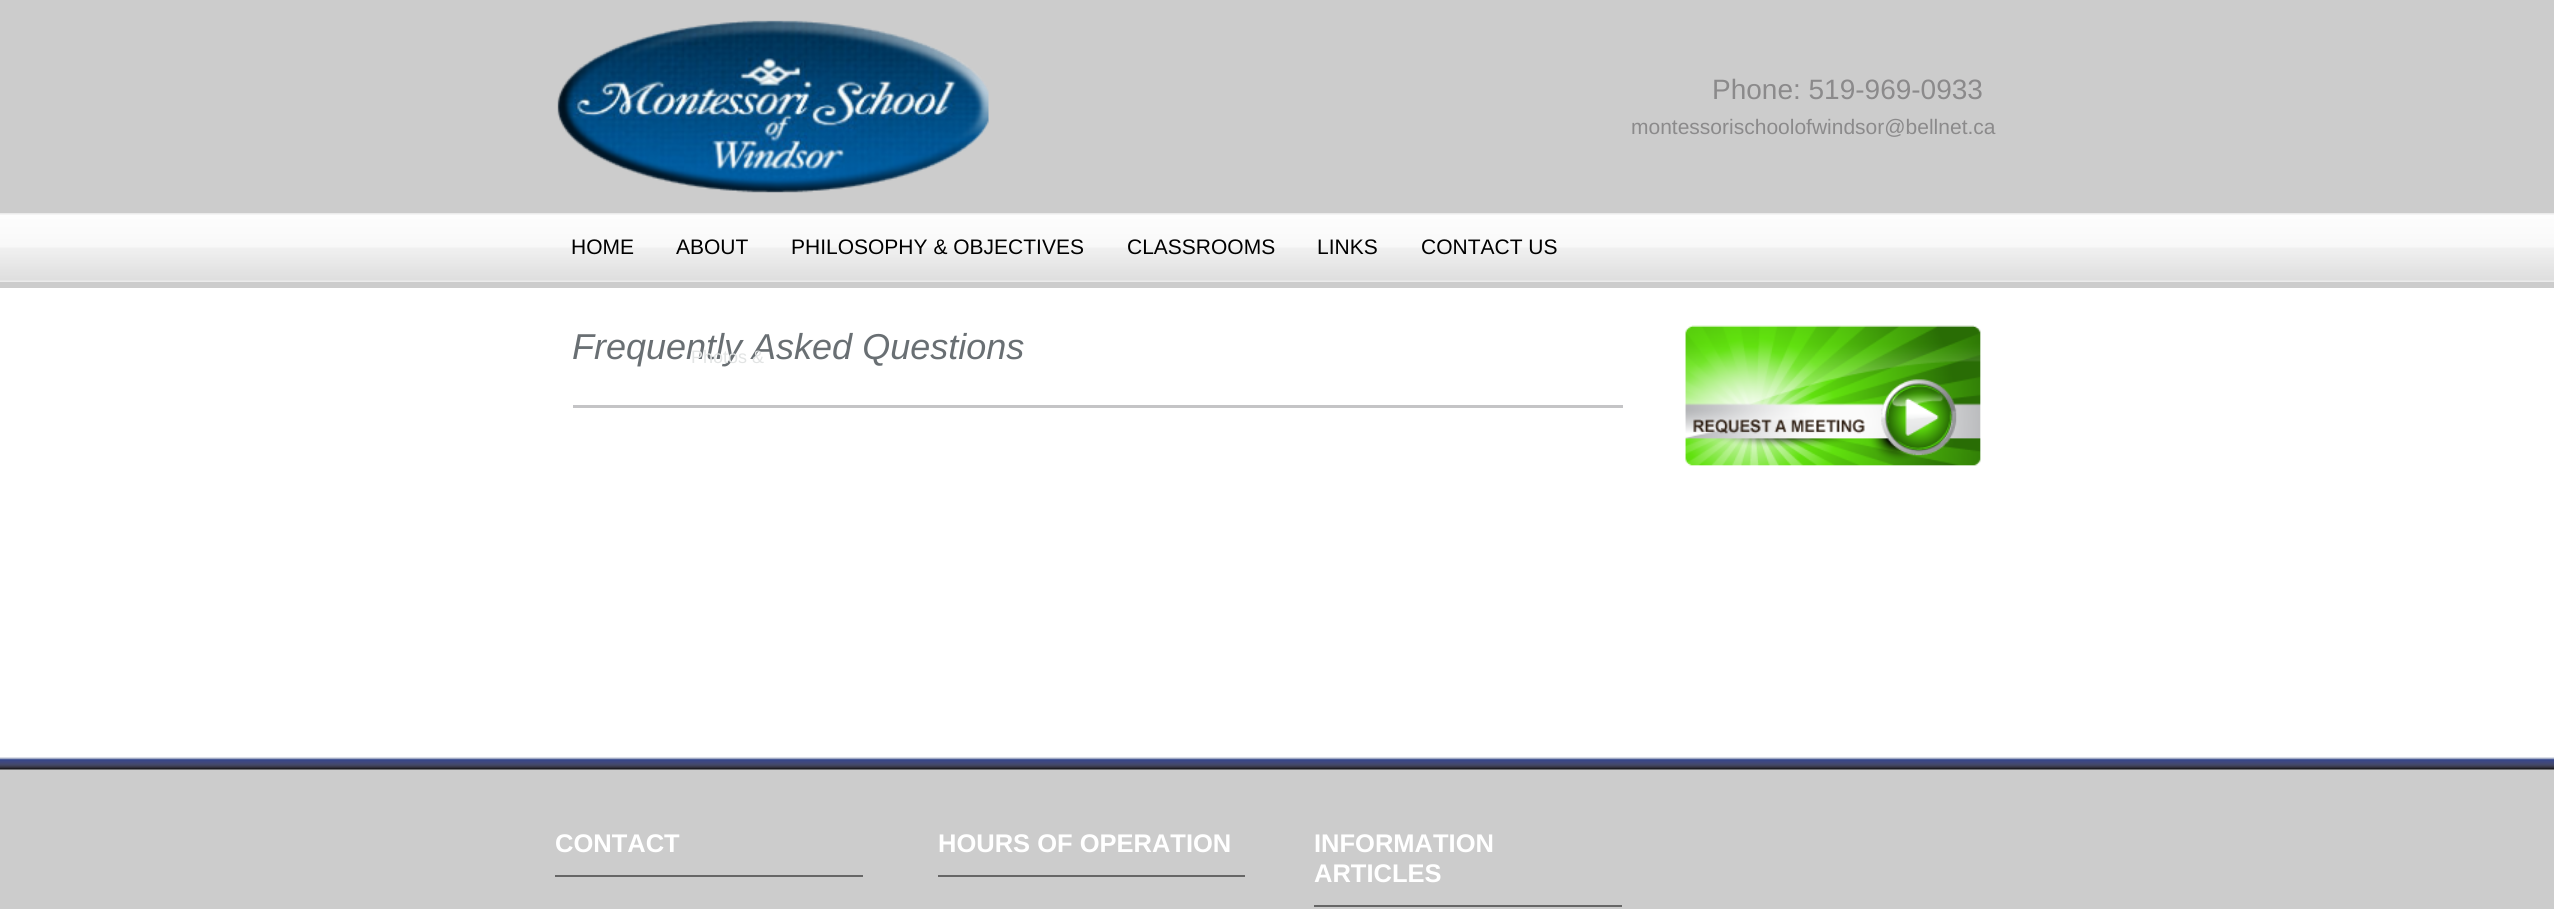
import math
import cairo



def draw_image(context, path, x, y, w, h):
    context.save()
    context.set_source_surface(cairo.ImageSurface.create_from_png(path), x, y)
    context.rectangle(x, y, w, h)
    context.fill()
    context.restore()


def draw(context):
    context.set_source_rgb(204 / 255, 204 / 255, 204 / 255)
    context.paint()
    draw_image(context, "images/1.png", 557, 20, 432, 173)
    draw_image(context, "images/2.png", 0, 213, 2554, 69)
    context.set_source_rgb(1, 1, 1)
    context.rectangle(0, 288, 2554, 470)
    context.fill()
    context.set_source_rgb(196 / 255, 196 / 255, 198 / 255)
    context.rectangle(573, 405, 1050, 3)
    context.fill()
    draw_image(context, "images/3.png", 1685, 325, 296, 141)
    draw_image(context, "images/4.png", 0, 757, 2554, 13)
    context.set_source_rgb(102 / 255, 102 / 255, 102 / 255)
    context.rectangle(555, 875, 308, 2)
    context.fill()
    context.rectangle(938, 875, 307, 2)
    context.fill()
    context.rectangle(1314, 905, 308, 2)
    context.fill()
    context.select_font_face("Liberation Sans")
    context.set_font_size(28)
    context.set_source_rgb(139 / 255, 138 / 255, 139 / 255)
    context.move_to(1712, 99)
    context.show_text("Phone: 519-969-0933")
    context.set_font_size(21)
    context.move_to(1631, 134)
    context.show_text("montessorischoolofwindsor@bellnet.ca")
    context.set_source_rgb(0, 0, 0)
    context.move_to(571, 254)
    context.show_text("HOME")
    context.move_to(676, 254)
    context.show_text("ABOUT")
    context.move_to(791, 254)
    context.show_text("PHILOSOPHY & OBJECTIVES")
    context.move_to(1127, 254)
    context.show_text("CLASSROOMS")
    context.move_to(1317, 254)
    context.show_text("LINKS")
    context.move_to(1421, 254)
    context.show_text("CONTACT US")
    context.select_font_face("Liberation Sans", cairo.FontSlant.ITALIC)
    context.set_font_size(36)
    context.set_source_rgb(105 / 255, 111 / 255, 115 / 255)
    context.move_to(572, 359)
    context.show_text("Frequently Asked Questions")
    context.select_font_face("Liberation Sans")
    context.set_font_size(18)
    context.set_source_rgb(226 / 255, 228 / 255, 228 / 255)
    context.move_to(691, 363)
    context.show_text("Photos &")
    context.select_font_face("Liberation Sans", cairo.FontSlant.NORMAL, cairo.FontWeight.BOLD)
    context.set_font_size(25.5)
    context.set_source_rgb(1, 1, 1)
    context.move_to(555, 852)
    context.show_text("CONTACT")
    context.move_to(938, 852)
    context.show_text("HOURS OF OPERATION")
    context.move_to(1314, 852)
    context.show_text("INFORMATION")
    context.move_to(1314, 882)
    context.show_text("ARTICLES")


surface = cairo.ImageSurface(cairo.Format.RGB24, 2554, 909)
context = cairo.Context(surface)
options = cairo.FontOptions()
options.set_hint_metrics(cairo.HintMetrics.OFF)
options.set_hint_style(cairo.HintStyle.NONE)
context.set_font_options(options)
context.set_miter_limit(4)
draw(context)
surface.write_to_png("out.png")
